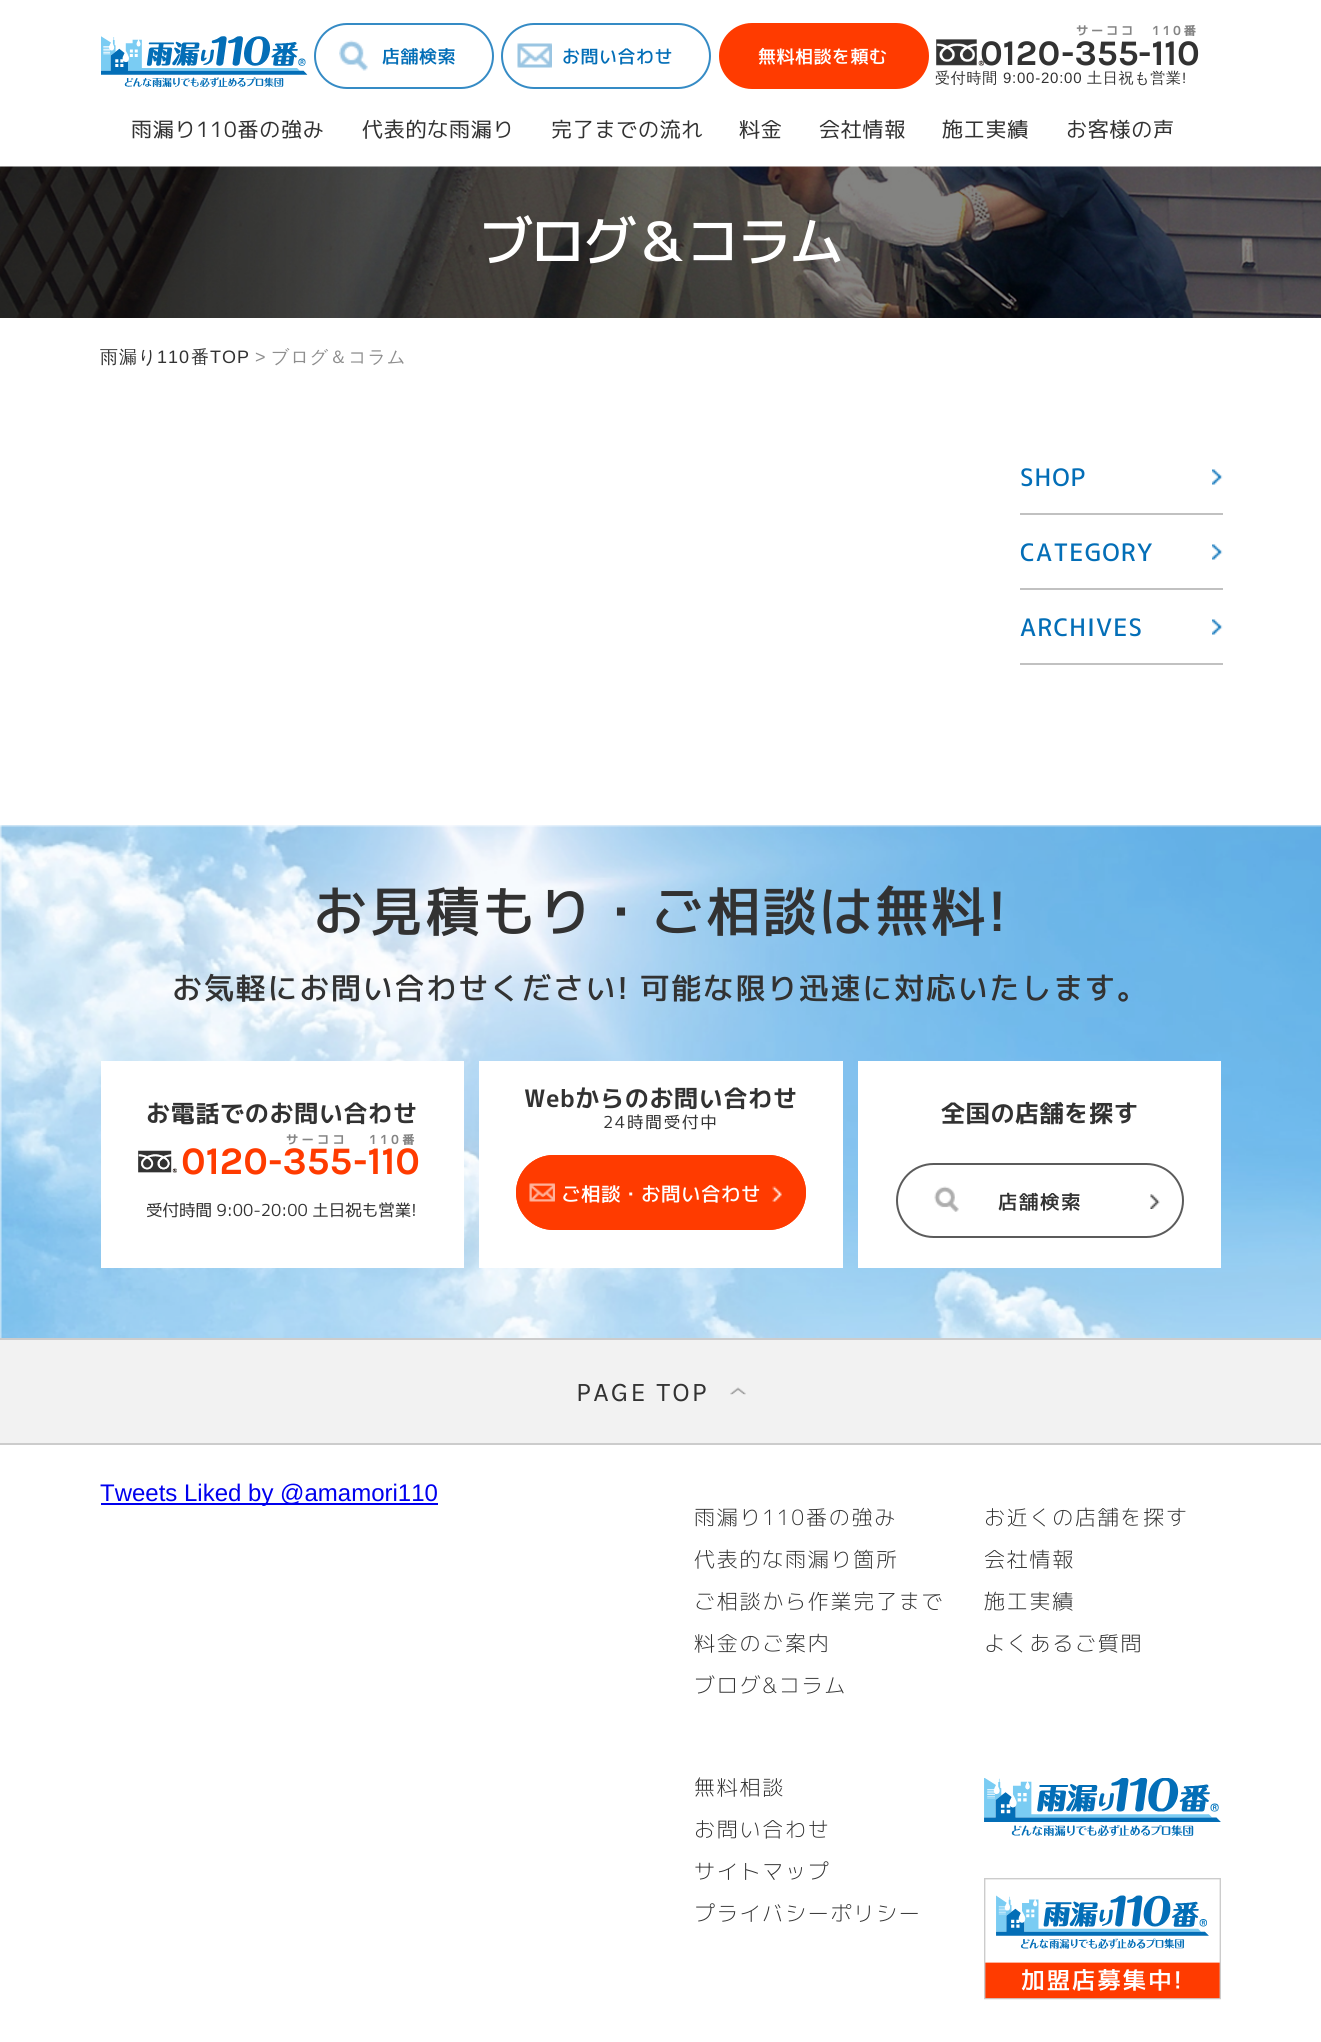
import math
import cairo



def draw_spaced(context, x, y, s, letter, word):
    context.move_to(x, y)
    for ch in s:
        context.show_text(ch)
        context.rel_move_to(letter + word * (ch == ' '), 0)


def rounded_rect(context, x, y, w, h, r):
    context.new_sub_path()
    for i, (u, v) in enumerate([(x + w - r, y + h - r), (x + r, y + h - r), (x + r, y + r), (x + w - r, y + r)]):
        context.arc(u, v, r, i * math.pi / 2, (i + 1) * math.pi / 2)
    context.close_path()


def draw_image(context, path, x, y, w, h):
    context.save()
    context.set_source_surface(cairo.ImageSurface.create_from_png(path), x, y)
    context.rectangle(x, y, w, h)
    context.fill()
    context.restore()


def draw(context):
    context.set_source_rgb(1, 1, 1)
    context.paint()
    draw_image(context, "images/1.png", 339, 40, 29, 31)
    rounded_rect(context, 315, 24, 178, 64, 32)
    context.set_source_rgb(53 / 255, 139 / 255, 197 / 255)
    context.stroke()
    draw_image(context, "images/2.png", 517, 43, 35, 25)
    rounded_rect(context, 502, 24, 208, 64, 32)
    context.stroke()
    context.set_source_rgb(1, 59 / 255, 0)
    rounded_rect(context, 720, 24, 208, 64, 32)
    context.fill_preserve()
    context.stroke()
    draw_image(context, "images/3.png", 936, 39, 48, 27)
    draw_image(context, "images/4.png", 101, 36, 207, 51)
    draw_image(context, "images/5.png", 0, 166, 1321, 152)
    context.set_source_rgb(193 / 255, 193 / 255, 193 / 255)
    context.rectangle(1020, 513, 203, 2)
    context.fill()
    draw_image(context, "images/6.png", 1212, 469, 11, 16)
    context.rectangle(1020, 588, 203, 2)
    context.fill()
    draw_image(context, "images/6.png", 1212, 544, 11, 16)
    context.rectangle(1020, 663, 203, 2)
    context.fill()
    draw_image(context, "images/6.png", 1212, 619, 11, 16)
    draw_image(context, "images/7.png", 0, 825, 1321, 513)
    context.set_source_rgb(1, 1, 1)
    context.rectangle(101, 1061, 363, 207)
    context.fill()
    draw_image(context, "images/8.png", 138, 1150, 39, 23)
    context.rectangle(479, 1061, 364, 207)
    context.fill()
    context.set_source_rgb(1, 59 / 255, 0)
    rounded_rect(context, 516, 1155, 290, 75, 37.5)
    context.fill()
    draw_image(context, "images/9.png", 529, 1183, 26, 19)
    rounded_rect(context, 517, 1156, 288, 73, 36.5)
    context.stroke()
    draw_image(context, "images/10.png", 772, 1186, 10, 16)
    context.set_source_rgb(1, 1, 1)
    context.rectangle(858, 1061, 363, 207)
    context.fill()
    draw_image(context, "images/11.png", 934, 1186, 25, 26)
    rounded_rect(context, 897, 1164, 286, 73, 36.5)
    context.set_source_rgb(91 / 255, 91 / 255, 91 / 255)
    context.stroke()
    draw_image(context, "images/12.png", 1150, 1194, 10, 15)
    context.set_source_rgb(242 / 255, 242 / 255, 242 / 255)
    context.rectangle(0, 1340, 1321, 103)
    context.fill()
    context.set_source_rgb(204 / 255, 204 / 255, 204 / 255)
    context.rectangle(0, 1338, 1321, 2)
    context.fill()
    context.rectangle(0, 1443, 1321, 2)
    context.fill()
    draw_image(context, "images/13.png", 730, 1387, 16, 8)
    context.set_source_rgb(0, 0, 238 / 255)
    context.rectangle(101, 1503, 337, 2)
    context.fill()
    draw_image(context, "images/14.png", 984, 1778, 237, 58)
    draw_image(context, "images/15.png", 984, 1878, 237, 122)
    context.select_font_face("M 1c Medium")
    context.set_font_size(18)
    context.set_source_rgb(3 / 255, 110 / 255, 183 / 255)
    draw_spaced(context, 382, 63, "店舗検索", 0.5, 0)
    draw_spaced(context, 562, 63, "お問い合わせ", 0.5, 0)
    context.set_source_rgb(1, 1, 1)
    draw_spaced(context, 758, 63, "無料相談を頼む", 0.5, 0)
    context.select_font_face("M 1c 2", cairo.FontSlant.NORMAL, cairo.FontWeight.BOLD)
    context.set_font_size(12)
    context.set_source_rgb(132 / 255, 132 / 255, 132 / 255)
    draw_spaced(context, 1076, 35, "サーココ", 3, 0)
    draw_spaced(context, 1152, 35, "110番", 3, 0)
    context.select_font_face("Karla", cairo.FontSlant.NORMAL, cairo.FontWeight.BOLD)
    context.set_font_size(36)
    context.set_source_rgb(50 / 255, 50 / 255, 50 / 255)
    context.move_to(980, 65)
    context.show_text("0120")
    context.move_to(1061, 65)
    context.show_text("-355")
    context.move_to(1138, 65)
    context.show_text("-110")
    context.select_font_face("WenQuanYi Zen Hei Medium")
    context.set_font_size(15)
    draw_spaced(context, 935, 83, "受付時間", 0.75, 0)
    context.select_font_face("Liberation Sans")
    draw_spaced(context, 1003, 83, "9:00-20:00", 0.75, 0)
    context.select_font_face("WenQuanYi Zen Hei Medium")
    draw_spaced(context, 1087, 83, "土日祝も営業", 0.75, 0)
    context.select_font_face("Liberation Sans")
    draw_spaced(context, 1182, 83, "!", 0.75, 0)
    context.select_font_face("M 1c")
    context.set_font_size(21)
    draw_spaced(context, 131, 137, "雨漏り110番の強み", 0.75, 0)
    draw_spaced(context, 362, 137, "代表的な雨漏り", 0.75, 0)
    draw_spaced(context, 551, 137, "完了までの流れ", 0.75, 0)
    draw_spaced(context, 739, 137, "料金", 0.75, 0)
    draw_spaced(context, 819, 137, "会社情報", 0.75, 0)
    draw_spaced(context, 942, 137, "施工実績", 0.75, 0)
    draw_spaced(context, 1066, 137, "お客様の声", 0.75, 0)
    context.select_font_face("M 1c Medium")
    context.set_font_size(54)
    context.set_source_rgb(1, 1, 1)
    draw_spaced(context, 479, 261, "ブログ＆コラム", -2.25, 0)
    context.select_font_face("WenQuanYi Zen Hei Medium")
    context.set_font_size(18)
    context.set_source_rgb(50 / 255, 50 / 255, 50 / 255)
    draw_spaced(context, 100, 363, "雨漏り", 1, 0)
    context.select_font_face("Liberation Sans")
    draw_spaced(context, 157, 363, "110", 1, 0)
    context.select_font_face("WenQuanYi Zen Hei Medium")
    draw_spaced(context, 191, 363, "番", 1, 0)
    context.select_font_face("Liberation Sans")
    draw_spaced(context, 210, 363, "TOP", 1, 0)
    context.set_source_rgb(142 / 255, 142 / 255, 142 / 255)
    draw_spaced(context, 255, 363, ">", 1, 0)
    context.select_font_face("WenQuanYi Zen Hei Medium")
    draw_spaced(context, 271, 363, "ブログ＆コラム", 1, 0)
    context.select_font_face("M 1c Medium")
    context.set_font_size(24)
    context.set_source_rgb(3 / 255, 110 / 255, 183 / 255)
    draw_spaced(context, 1020, 486, "SHOP", 1, 0)
    draw_spaced(context, 1020, 561, "CATEGORY", 1, 0)
    draw_spaced(context, 1020, 636, "ARCHIVES", 1, 0)
    context.set_font_size(54)
    context.set_source_rgb(50 / 255, 50 / 255, 50 / 255)
    draw_spaced(context, 313, 931, "お見積もり・ご相談は無料!", 2.2, 0)
    context.set_font_size(30)
    draw_spaced(context, 172, 999, "お気軽にお問い合わせください! 可能な限り迅速に対応いたします。", 1.8, 0)
    context.select_font_face("M 1c", cairo.FontSlant.NORMAL, cairo.FontWeight.BOLD)
    context.set_font_size(24)
    draw_spaced(context, 146, 1122, "お電話でのお問い合わせ", 0.7, 0)
    context.select_font_face("M 1c 2", cairo.FontSlant.NORMAL, cairo.FontWeight.BOLD)
    context.set_font_size(12)
    context.set_source_rgb(132 / 255, 132 / 255, 132 / 255)
    draw_spaced(context, 286, 1144, "サーココ", 3.5, 0)
    draw_spaced(context, 369, 1144, "110番", 3.5, 0)
    context.select_font_face("Karla", cairo.FontSlant.NORMAL, cairo.FontWeight.BOLD)
    context.set_font_size(39)
    context.set_source_rgb(1, 59 / 255, 0)
    context.move_to(181, 1174)
    context.show_text("0120")
    context.move_to(268, 1174)
    context.show_text("-355")
    context.move_to(353, 1174)
    context.show_text("-110")
    context.select_font_face("M 1c")
    context.set_font_size(16.5)
    context.set_source_rgb(50 / 255, 50 / 255, 50 / 255)
    context.move_to(146, 1216)
    context.show_text("受付時間 9:00-20:00 土日祝も営業!")
    context.select_font_face("M 1c", cairo.FontSlant.NORMAL, cairo.FontWeight.BOLD)
    context.set_font_size(24)
    draw_spaced(context, 524, 1107, "Webからのお問い合わせ", 0.7, 0)
    context.select_font_face("M 1c")
    context.set_font_size(16.5)
    draw_spaced(context, 603, 1128, "24時間受付中", 1.8, 0)
    context.select_font_face("M 1c Medium")
    context.set_font_size(19.5)
    context.set_source_rgb(1, 1, 1)
    draw_spaced(context, 561, 1201, "ご相談・お問い合わせ", 0.5, 0)
    context.select_font_face("M 1c", cairo.FontSlant.NORMAL, cairo.FontWeight.BOLD)
    context.set_font_size(24)
    context.set_source_rgb(50 / 255, 50 / 255, 50 / 255)
    draw_spaced(context, 941, 1122, "全国の店舗を探す", 0.7, 0)
    context.select_font_face("M 1c Medium")
    context.set_font_size(19.5)
    draw_spaced(context, 998, 1209, "店舗検索", 1.5, 0)
    context.select_font_face("Karla")
    context.set_font_size(27)
    draw_spaced(context, 576, 1401, "PAGE TOP", 2.2, 0)
    context.select_font_face("Liberation Sans")
    context.set_font_size(24)
    context.set_source_rgb(0, 0, 238 / 255)
    context.move_to(100, 1501)
    context.show_text("Tweets Liked by @amamori110")
    context.select_font_face("M 1c Light")
    context.set_font_size(21)
    context.set_source_rgb(50 / 255, 50 / 255, 50 / 255)
    draw_spaced(context, 694, 1525, "雨漏り110番の強み", 1.75, 0)
    draw_spaced(context, 694, 1567, "代表的な雨漏り箇所", 1.75, 0)
    draw_spaced(context, 694, 1609, "ご相談から作業完了まで", 1.75, 0)
    draw_spaced(context, 694, 1651, "料金のご案内", 1.75, 0)
    draw_spaced(context, 694, 1693, "ブログ&コラム", 1.75, 0)
    draw_spaced(context, 984, 1525, "お近くの店舗を探す", 1.75, 0)
    draw_spaced(context, 984, 1567, "会社情報", 1.75, 0)
    draw_spaced(context, 984, 1609, "施工実績", 1.75, 0)
    draw_spaced(context, 984, 1651, "よくあるご質問", 1.75, 0)
    draw_spaced(context, 694, 1795, "無料相談", 1.75, 0)
    draw_spaced(context, 694, 1837, "お問い合わせ", 1.75, 0)
    draw_spaced(context, 694, 1879, "サイトマップ", 1.75, 0)
    draw_spaced(context, 694, 1921, "プライバシーポリシー", 1.75, 0)


surface = cairo.ImageSurface(cairo.Format.RGB24, 1321, 2042)
context = cairo.Context(surface)
options = cairo.FontOptions()
options.set_hint_metrics(cairo.HintMetrics.OFF)
options.set_hint_style(cairo.HintStyle.NONE)
context.set_font_options(options)
context.set_miter_limit(4)
draw(context)
surface.write_to_png("out.png")
